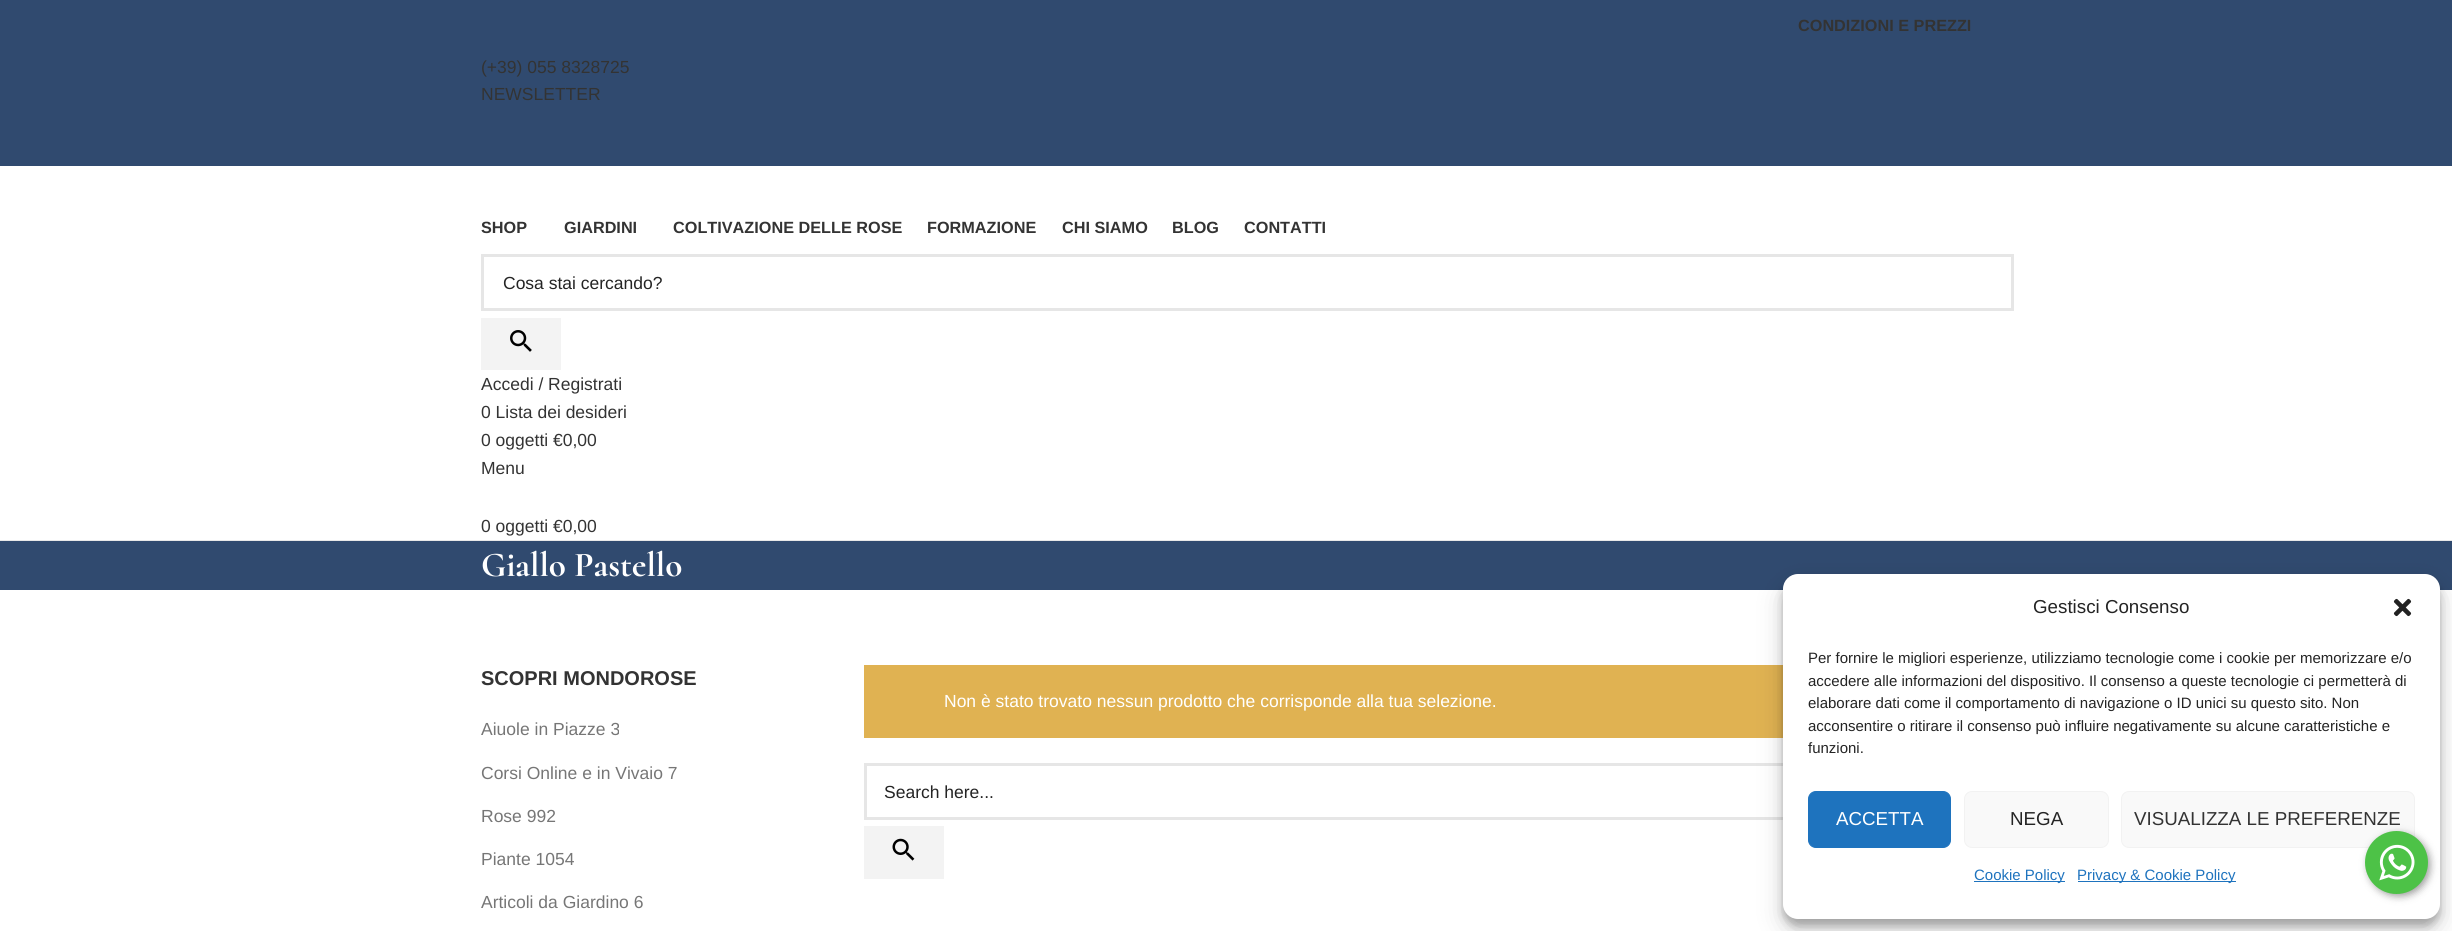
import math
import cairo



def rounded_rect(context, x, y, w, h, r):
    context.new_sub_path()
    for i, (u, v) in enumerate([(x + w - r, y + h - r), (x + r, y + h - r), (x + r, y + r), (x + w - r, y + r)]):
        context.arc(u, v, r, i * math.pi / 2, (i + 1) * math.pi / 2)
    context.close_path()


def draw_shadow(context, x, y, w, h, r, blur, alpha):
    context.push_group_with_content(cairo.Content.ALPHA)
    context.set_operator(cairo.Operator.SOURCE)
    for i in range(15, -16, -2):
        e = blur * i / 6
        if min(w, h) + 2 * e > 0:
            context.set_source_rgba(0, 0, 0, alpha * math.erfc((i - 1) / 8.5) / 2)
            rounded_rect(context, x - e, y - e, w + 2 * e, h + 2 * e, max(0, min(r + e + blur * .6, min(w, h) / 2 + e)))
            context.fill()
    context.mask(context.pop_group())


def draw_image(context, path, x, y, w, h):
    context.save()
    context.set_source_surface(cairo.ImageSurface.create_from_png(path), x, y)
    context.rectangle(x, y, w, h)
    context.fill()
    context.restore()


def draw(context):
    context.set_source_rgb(1, 1, 1)
    context.paint()
    context.set_source_rgb(48 / 255, 74 / 255, 111 / 255)
    context.rectangle(0, 0, 2452, 166)
    context.fill()
    context.set_source_rgb(232 / 255, 232 / 255, 232 / 255)
    context.rectangle(0, 540, 2452, 1)
    context.fill()
    context.rectangle(482.5, 255.5, 1530, 54)
    context.set_source_rgb(230 / 255, 230 / 255, 230 / 255)
    context.set_line_width(3)
    context.stroke()
    context.set_source_rgb(243 / 255, 243 / 255, 243 / 255)
    context.rectangle(481, 318, 80, 52)
    context.fill()
    draw_image(context, "images/1.png", 510, 330, 22, 22)
    context.set_source_rgb(48 / 255, 74 / 255, 111 / 255)
    context.rectangle(0, 541, 2452, 49)
    context.fill()
    context.set_source_rgb(224 / 255, 178 / 255, 82 / 255)
    context.rectangle(864, 665, 919, 73)
    context.fill()
    context.rectangle(865.5, 764.5, 1147, 54)
    context.set_source_rgb(230 / 255, 230 / 255, 230 / 255)
    context.stroke()
    context.set_source_rgb(243 / 255, 243 / 255, 243 / 255)
    context.rectangle(864, 826, 80, 53)
    context.fill()
    draw_image(context, "images/2.png", 892, 838, 23, 23)
    context.set_source_rgb(0, 0, 0)
    draw_shadow(context, 1783, 581, 657, 345, 15, 4, 0.23)
    draw_shadow(context, 1783, 586, 657, 345, 15, 12.5, 0.19)
    context.set_source_rgb(1, 1, 1)
    rounded_rect(context, 1783, 574, 657, 345, 15)
    context.fill()
    draw_image(context, "images/3.png", 2393, 598, 19, 19)
    context.set_source_rgb(30 / 255, 115 / 255, 190 / 255)
    rounded_rect(context, 1808.5, 791.5, 142, 56, 7.5)
    context.fill_preserve()
    context.set_line_width(1)
    context.stroke()
    context.set_source_rgb(249 / 255, 249 / 255, 249 / 255)
    rounded_rect(context, 1964.5, 791.5, 144, 56, 7.5)
    context.fill_preserve()
    context.set_source_rgb(242 / 255, 242 / 255, 242 / 255)
    context.stroke()
    context.set_source_rgb(249 / 255, 249 / 255, 249 / 255)
    rounded_rect(context, 2121.5, 791.5, 293, 56, 7.5)
    context.fill_preserve()
    context.set_source_rgb(242 / 255, 242 / 255, 242 / 255)
    context.stroke()
    context.set_source_rgb(30 / 255, 115 / 255, 190 / 255)
    context.rectangle(1974, 881, 91, 1)
    context.fill()
    context.rectangle(2078, 881, 158, 1)
    context.fill()
    context.set_source_rgb(0, 0, 0)
    draw_shadow(context, 2368, 834, 62, 62, 31, 4, 0.4)
    context.set_source_rgb(77 / 255, 194 / 255, 71 / 255)
    context.arc(2396.5, 862.5, 31.5, 0, 2 * math.pi)
    context.fill()
    draw_image(context, "images/4.png", 2379, 844, 36, 37)
    context.select_font_face("Liberation Sans", cairo.FontSlant.NORMAL, cairo.FontWeight.BOLD)
    context.set_font_size(16.25)
    context.set_source_rgb(51 / 255, 51 / 255, 51 / 255)
    context.move_to(1798, 31)
    context.show_text("CONDIZIONI E PREZZI")
    context.select_font_face("Liberation Sans")
    context.set_font_size(17.5)
    context.move_to(481, 73)
    context.show_text("(+39) 055 8328725")
    context.move_to(481, 100)
    context.show_text("NEWSLETTER")
    context.select_font_face("Liberation Sans", cairo.FontSlant.NORMAL, cairo.FontWeight.BOLD)
    context.set_font_size(16.25)
    context.move_to(481, 233)
    context.show_text("SHOP")
    context.move_to(564, 233)
    context.show_text("GIARDINI")
    context.move_to(673, 233)
    context.show_text("COLTIVAZIONE DELLE ROSE")
    context.move_to(927, 233)
    context.show_text("FORMAZIONE")
    context.move_to(1062, 233)
    context.show_text("CHI SIAMO")
    context.move_to(1172, 233)
    context.show_text("BLOG")
    context.move_to(1244, 233)
    context.show_text("CONTATTI")
    context.select_font_face("Liberation Sans")
    context.set_font_size(17.5)
    context.set_source_rgb(36 / 255, 36 / 255, 36 / 255)
    context.move_to(503, 289)
    context.show_text("Cosa stai cercando?")
    context.set_source_rgb(51 / 255, 51 / 255, 51 / 255)
    context.move_to(481, 390)
    context.show_text("Accedi / Registrati")
    context.move_to(481, 418)
    context.show_text("0 Lista dei desideri")
    context.move_to(481, 446)
    context.show_text("0 oggetti €0,00")
    context.move_to(481, 474)
    context.show_text("Menu")
    context.move_to(481, 532)
    context.show_text("0 oggetti €0,00")
    context.select_font_face("Cormorant", cairo.FontSlant.NORMAL, cairo.FontWeight.BOLD)
    context.set_font_size(35)
    context.set_source_rgb(1, 1, 1)
    context.move_to(481, 576)
    context.show_text("Giallo Pastello")
    context.select_font_face("Liberation Sans", cairo.FontSlant.NORMAL, cairo.FontWeight.BOLD)
    context.set_font_size(20)
    context.set_source_rgb(51 / 255, 51 / 255, 51 / 255)
    context.move_to(481, 685)
    context.show_text("SCOPRI MONDOROSE")
    context.select_font_face("Liberation Sans")
    context.set_font_size(17.5)
    context.set_source_rgb(118 / 255, 118 / 255, 118 / 255)
    context.move_to(481, 735)
    context.show_text("Aiuole in Piazze 3")
    context.move_to(481, 779)
    context.show_text("Corsi Online e in Vivaio 7")
    context.move_to(481, 822)
    context.show_text("Rose 992")
    context.move_to(481, 865)
    context.show_text("Piante 1054")
    context.move_to(481, 908)
    context.show_text("Articoli da Giardino 6")
    context.set_source_rgb(1, 1, 1)
    context.move_to(944, 707)
    context.show_text("Non è stato trovato nessun prodotto che corrisponde alla tua selezione.")
    context.set_source_rgb(36 / 255, 36 / 255, 36 / 255)
    context.move_to(884, 798)
    context.show_text("Search here...")
    context.set_font_size(18.75)
    context.move_to(2033, 613)
    context.show_text("Gestisci Consenso")
    context.set_font_size(15)
    context.move_to(1808, 663)
    context.show_text("Per fornire le migliori esperienze, utilizziamo tecnologie come i cookie per memorizzare e/o")
    context.move_to(1808, 686)
    context.show_text("accedere alle informazioni del dispositivo. Il consenso a queste tecnologie ci permetterà di")
    context.move_to(1808, 708)
    context.show_text("elaborare dati come il comportamento di navigazione o ID unici su questo sito. Non")
    context.move_to(1808, 731)
    context.show_text("acconsentire o ritirare il consenso può influire negativamente su alcune caratteristiche e")
    context.move_to(1808, 753)
    context.show_text("funzioni.")
    context.set_font_size(18.75)
    context.set_source_rgb(1, 1, 1)
    context.move_to(1836, 825)
    context.show_text("ACCETTA")
    context.set_source_rgb(36 / 255, 36 / 255, 36 / 255)
    context.move_to(2010, 825)
    context.show_text("NEGA")
    context.set_source_rgb(51 / 255, 51 / 255, 51 / 255)
    context.move_to(2134, 825)
    context.show_text("VISUALIZZA LE PREFERENZE")
    context.set_font_size(15)
    context.set_source_rgb(30 / 255, 115 / 255, 190 / 255)
    context.move_to(1974, 880)
    context.show_text("Cookie Policy")
    context.move_to(2077, 880)
    context.show_text("Privacy & Cookie Policy")


surface = cairo.ImageSurface(cairo.Format.RGB24, 2452, 931)
context = cairo.Context(surface)
options = cairo.FontOptions()
options.set_hint_metrics(cairo.HintMetrics.OFF)
options.set_hint_style(cairo.HintStyle.NONE)
context.set_font_options(options)
context.set_miter_limit(4)
draw(context)
surface.write_to_png("out.png")
